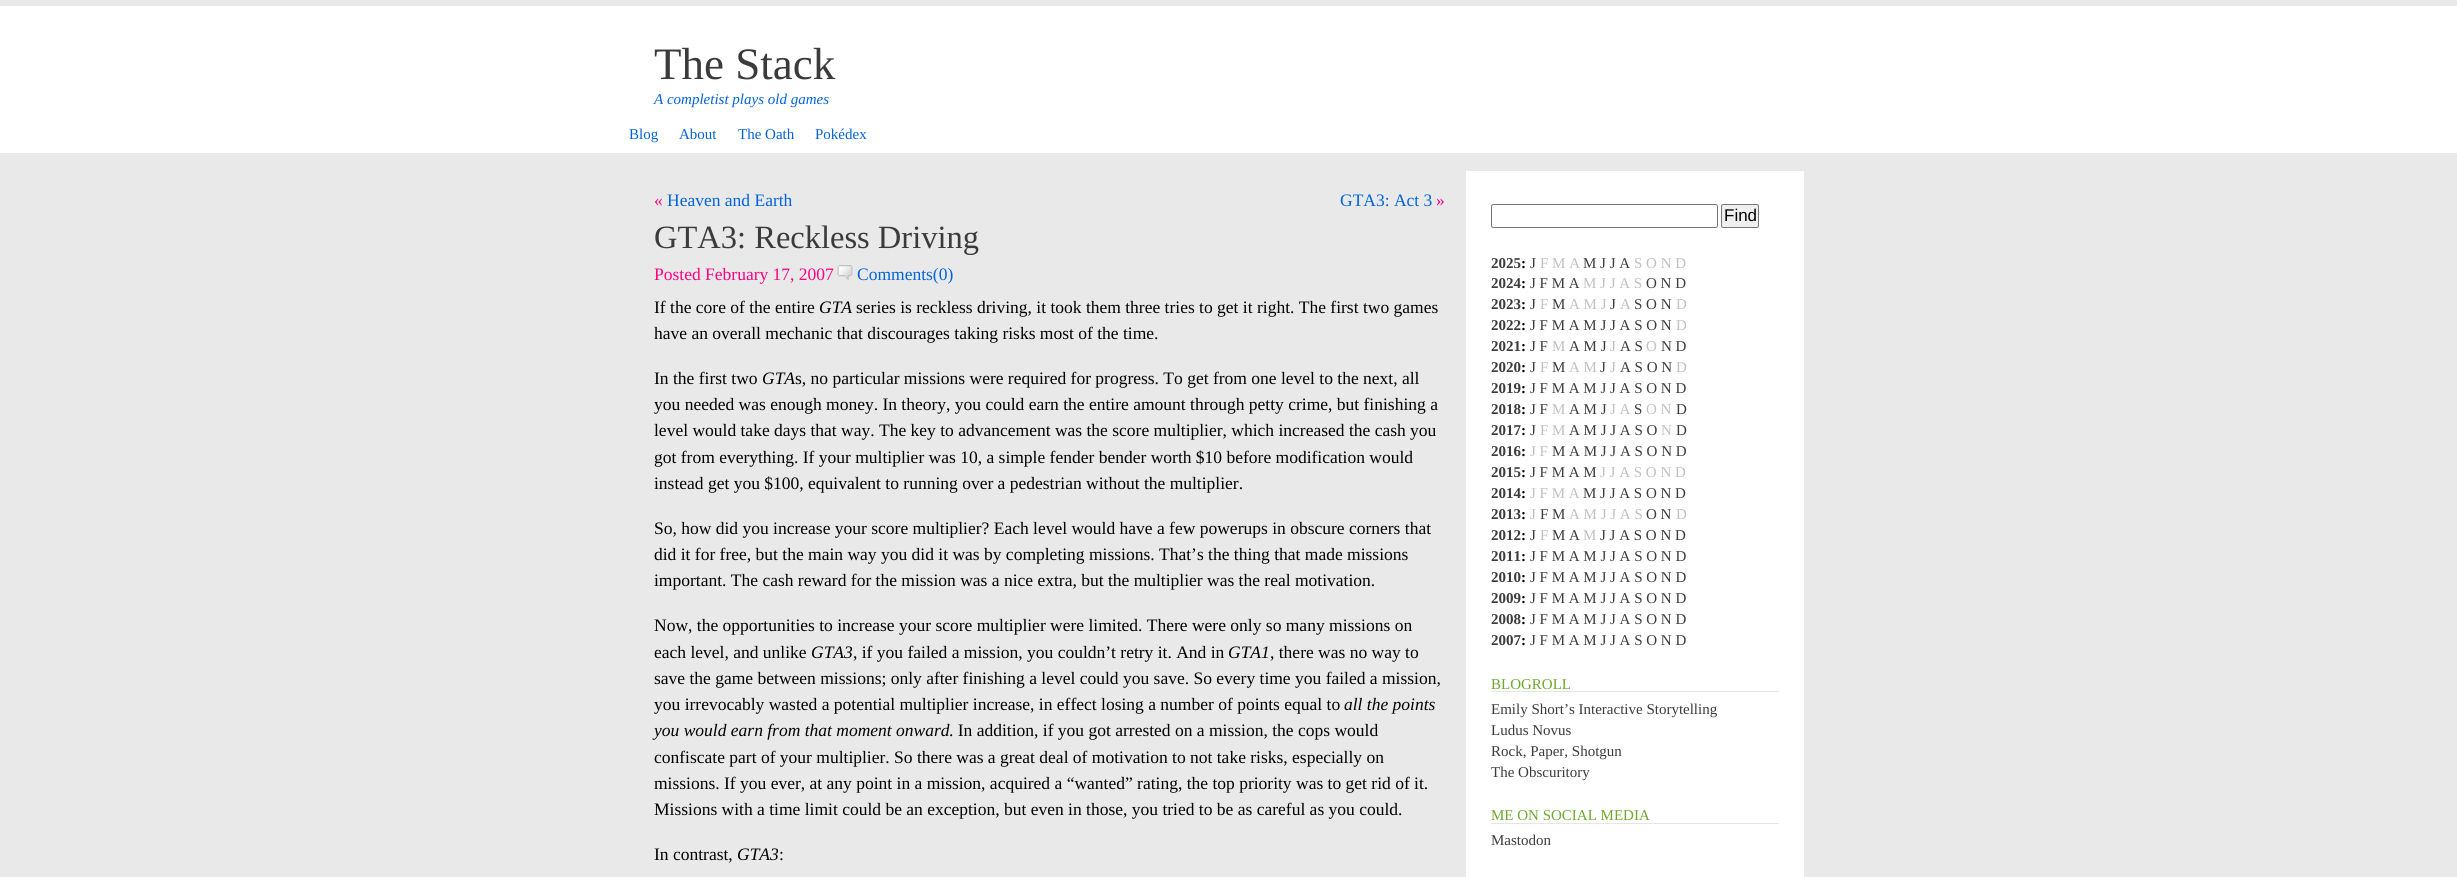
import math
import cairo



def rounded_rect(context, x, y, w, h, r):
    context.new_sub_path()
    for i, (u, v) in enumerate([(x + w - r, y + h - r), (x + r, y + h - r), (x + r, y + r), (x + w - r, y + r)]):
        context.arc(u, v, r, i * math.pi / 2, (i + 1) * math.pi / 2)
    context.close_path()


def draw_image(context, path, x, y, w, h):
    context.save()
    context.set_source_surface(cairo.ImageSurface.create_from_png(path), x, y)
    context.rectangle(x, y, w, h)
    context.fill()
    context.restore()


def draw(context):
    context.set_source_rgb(233 / 255, 233 / 255, 233 / 255)
    context.paint()
    context.set_source_rgb(1, 1, 1)
    context.rectangle(0, 6, 2457, 147)
    context.fill()
    draw_image(context, "images/1.png", 837, 265, 16, 15)
    context.rectangle(1466, 171, 338, 706)
    context.fill()
    rounded_rect(context, 1491.5, 204.5, 226, 23, 2)
    context.set_source_rgb(118 / 255, 118 / 255, 118 / 255)
    context.set_line_width(1)
    context.stroke()
    context.set_source_rgb(239 / 255, 239 / 255, 239 / 255)
    rounded_rect(context, 1721.5, 204.5, 37, 23, 2)
    context.fill_preserve()
    context.set_source_rgb(118 / 255, 118 / 255, 118 / 255)
    context.stroke()
    context.set_source_rgb(229 / 255, 229 / 255, 229 / 255)
    context.rectangle(1491, 691, 288, 1)
    context.fill()
    context.rectangle(1491, 823, 288, 1)
    context.fill()
    context.select_font_face("Liberation Serif")
    context.set_font_size(45)
    context.set_source_rgb(59 / 255, 59 / 255, 59 / 255)
    context.move_to(654, 79)
    context.show_text("The Stack")
    context.select_font_face("Liberation Serif", cairo.FontSlant.ITALIC)
    context.set_font_size(15)
    context.set_source_rgb(0, 99 / 255, 220 / 255)
    context.move_to(654, 104)
    context.show_text("A completist plays old games")
    context.select_font_face("Liberation Serif")
    context.move_to(629, 139)
    context.show_text("Blog")
    context.move_to(679, 139)
    context.show_text("About")
    context.move_to(738, 139)
    context.show_text("The Oath")
    context.move_to(815, 139)
    context.show_text("Pokédex")
    context.set_font_size(17.5)
    context.set_source_rgb(1, 0, 132 / 255)
    context.move_to(654, 206)
    context.show_text("«")
    context.set_source_rgb(0, 99 / 255, 220 / 255)
    context.move_to(667, 206)
    context.show_text("Heaven and Earth")
    context.move_to(1340, 206)
    context.show_text("GTA3: Act 3")
    context.set_source_rgb(1, 0, 132 / 255)
    context.move_to(1436, 206)
    context.show_text("»")
    context.set_font_size(32.5)
    context.set_source_rgb(59 / 255, 59 / 255, 59 / 255)
    context.move_to(654, 248)
    context.show_text("GTA3: Reckless Driving")
    context.set_font_size(17.5)
    context.set_source_rgb(1, 0, 132 / 255)
    context.move_to(654, 280)
    context.show_text("Posted February 17, 2007")
    context.set_source_rgb(0, 99 / 255, 220 / 255)
    context.move_to(857, 280)
    context.show_text("Comments(0)")
    context.set_source_rgb(0, 0, 0)
    context.move_to(654, 313)
    context.show_text("If the core of the entire")
    context.select_font_face("Liberation Serif", cairo.FontSlant.ITALIC)
    context.move_to(819, 313)
    context.show_text("GTA")
    context.select_font_face("Liberation Serif")
    context.move_to(856, 313)
    context.show_text("series is reckless driving, it took them three tries to get it right. The first two games")
    context.move_to(654, 339)
    context.show_text("have an overall mechanic that discourages taking risks most of the time.")
    context.move_to(654, 384)
    context.show_text("In the first two")
    context.select_font_face("Liberation Serif", cairo.FontSlant.ITALIC)
    context.move_to(762, 384)
    context.show_text("GTA")
    context.select_font_face("Liberation Serif")
    context.move_to(795, 384)
    context.show_text("s, no particular missions were required for progress. To get from one level to the next, all")
    context.move_to(654, 410)
    context.show_text("you needed was enough money. In theory, you could earn the entire amount through petty crime, but finishing a")
    context.move_to(654, 436)
    context.show_text("level would take days that way. The key to advancement was the score multiplier, which increased the cash you")
    context.move_to(654, 463)
    context.show_text("got from everything. If your multiplier was 10, a simple fender bender worth $10 before modification would")
    context.move_to(654, 489)
    context.show_text("instead get you $100, equivalent to running over a pedestrian without the multiplier.")
    context.move_to(654, 534)
    context.show_text("So, how did you increase your score multiplier? Each level would have a few powerups in obscure corners that")
    context.move_to(654, 560)
    context.show_text("did it for free, but the main way you did it was by completing missions. That’s the thing that made missions")
    context.move_to(654, 586)
    context.show_text("important. The cash reward for the mission was a nice extra, but the multiplier was the real motivation.")
    context.move_to(654, 631)
    context.show_text("Now, the opportunities to increase your score multiplier were limited. There were only so many missions on")
    context.move_to(654, 658)
    context.show_text("each level, and unlike")
    context.select_font_face("Liberation Serif", cairo.FontSlant.ITALIC)
    context.move_to(811, 658)
    context.show_text("GTA3")
    context.select_font_face("Liberation Serif")
    context.move_to(853, 658)
    context.show_text(", if you failed a mission, you couldn’t retry it. And in")
    context.select_font_face("Liberation Serif", cairo.FontSlant.ITALIC)
    context.move_to(1228, 658)
    context.show_text("GTA1")
    context.select_font_face("Liberation Serif")
    context.move_to(1270, 658)
    context.show_text(", there was no way to")
    context.move_to(654, 684)
    context.show_text("save the game between missions; only after finishing a level could you save. So every time you failed a mission,")
    context.move_to(654, 710)
    context.show_text("you irrevocably wasted a potential multiplier increase, in effect losing a number of points equal to")
    context.select_font_face("Liberation Serif", cairo.FontSlant.ITALIC)
    context.move_to(1344, 710)
    context.show_text("all the points")
    context.move_to(654, 736)
    context.show_text("you would earn from that moment onward")
    context.select_font_face("Liberation Serif")
    context.move_to(949, 736)
    context.show_text(". In addition, if you got arrested on a mission, the cops would")
    context.move_to(654, 763)
    context.show_text("confiscate part of your multiplier. So there was a great deal of motivation to not take risks, especially on")
    context.move_to(654, 789)
    context.show_text("missions. If you ever, at any point in a mission, acquired a “wanted” rating, the top priority was to get rid of it.")
    context.move_to(654, 815)
    context.show_text("Missions with a time limit could be an exception, but even in those, you tried to be as careful as you could.")
    context.move_to(654, 860)
    context.show_text("In contrast,")
    context.select_font_face("Liberation Serif", cairo.FontSlant.ITALIC)
    context.move_to(737, 860)
    context.show_text("GTA3")
    context.select_font_face("Liberation Serif")
    context.move_to(779, 860)
    context.show_text(":")
    context.select_font_face("Liberation Sans")
    context.set_font_size(17)
    context.move_to(1724, 221)
    context.show_text("Find")
    context.select_font_face("Liberation Serif", cairo.FontSlant.NORMAL, cairo.FontWeight.BOLD)
    context.set_font_size(15)
    context.set_source_rgb(59 / 255, 59 / 255, 59 / 255)
    context.move_to(1491, 268)
    context.show_text("2025")
    context.set_source_rgb(0, 0, 0)
    context.move_to(1521, 268)
    context.show_text(":")
    context.select_font_face("Liberation Serif")
    context.set_source_rgb(59 / 255, 59 / 255, 59 / 255)
    context.move_to(1530, 268)
    context.show_text("J")
    context.set_source_rgb(192 / 255, 192 / 255, 192 / 255)
    context.move_to(1540, 268)
    context.show_text("F M A")
    context.set_source_rgb(59 / 255, 59 / 255, 59 / 255)
    context.move_to(1583, 268)
    context.show_text("M J J A")
    context.set_source_rgb(192 / 255, 192 / 255, 192 / 255)
    context.move_to(1634, 268)
    context.show_text("S O N D")
    context.select_font_face("Liberation Serif", cairo.FontSlant.NORMAL, cairo.FontWeight.BOLD)
    context.set_source_rgb(59 / 255, 59 / 255, 59 / 255)
    context.move_to(1491, 288)
    context.show_text("2024")
    context.set_source_rgb(0, 0, 0)
    context.move_to(1521, 288)
    context.show_text(":")
    context.select_font_face("Liberation Serif")
    context.set_source_rgb(59 / 255, 59 / 255, 59 / 255)
    context.move_to(1530, 288)
    context.show_text("J F M A")
    context.set_source_rgb(192 / 255, 192 / 255, 192 / 255)
    context.move_to(1583, 288)
    context.show_text("M J J A S")
    context.set_source_rgb(59 / 255, 59 / 255, 59 / 255)
    context.move_to(1646, 288)
    context.show_text("O N D")
    context.select_font_face("Liberation Serif", cairo.FontSlant.NORMAL, cairo.FontWeight.BOLD)
    context.move_to(1491, 309)
    context.show_text("2023")
    context.set_source_rgb(0, 0, 0)
    context.move_to(1521, 309)
    context.show_text(":")
    context.select_font_face("Liberation Serif")
    context.set_source_rgb(59 / 255, 59 / 255, 59 / 255)
    context.move_to(1530, 309)
    context.show_text("J")
    context.set_source_rgb(192 / 255, 192 / 255, 192 / 255)
    context.move_to(1540, 309)
    context.show_text("F")
    context.set_source_rgb(59 / 255, 59 / 255, 59 / 255)
    context.move_to(1552, 309)
    context.show_text("M")
    context.set_source_rgb(192 / 255, 192 / 255, 192 / 255)
    context.move_to(1569, 309)
    context.show_text("A M J")
    context.set_source_rgb(59 / 255, 59 / 255, 59 / 255)
    context.move_to(1610, 309)
    context.show_text("J")
    context.set_source_rgb(192 / 255, 192 / 255, 192 / 255)
    context.move_to(1620, 309)
    context.show_text("A")
    context.set_source_rgb(59 / 255, 59 / 255, 59 / 255)
    context.move_to(1634, 309)
    context.show_text("S O N")
    context.set_source_rgb(192 / 255, 192 / 255, 192 / 255)
    context.move_to(1676, 309)
    context.show_text("D")
    context.select_font_face("Liberation Serif", cairo.FontSlant.NORMAL, cairo.FontWeight.BOLD)
    context.set_source_rgb(59 / 255, 59 / 255, 59 / 255)
    context.move_to(1491, 330)
    context.show_text("2022")
    context.set_source_rgb(0, 0, 0)
    context.move_to(1521, 330)
    context.show_text(":")
    context.select_font_face("Liberation Serif")
    context.set_source_rgb(59 / 255, 59 / 255, 59 / 255)
    context.move_to(1530, 330)
    context.show_text("J F M A M J J A S O N")
    context.set_source_rgb(192 / 255, 192 / 255, 192 / 255)
    context.move_to(1676, 330)
    context.show_text("D")
    context.select_font_face("Liberation Serif", cairo.FontSlant.NORMAL, cairo.FontWeight.BOLD)
    context.set_source_rgb(59 / 255, 59 / 255, 59 / 255)
    context.move_to(1491, 351)
    context.show_text("2021")
    context.set_source_rgb(0, 0, 0)
    context.move_to(1521, 351)
    context.show_text(":")
    context.select_font_face("Liberation Serif")
    context.set_source_rgb(59 / 255, 59 / 255, 59 / 255)
    context.move_to(1530, 351)
    context.show_text("J F")
    context.set_source_rgb(192 / 255, 192 / 255, 192 / 255)
    context.move_to(1552, 351)
    context.show_text("M")
    context.set_source_rgb(59 / 255, 59 / 255, 59 / 255)
    context.move_to(1569, 351)
    context.show_text("A M J")
    context.set_source_rgb(192 / 255, 192 / 255, 192 / 255)
    context.move_to(1610, 351)
    context.show_text("J")
    context.set_source_rgb(59 / 255, 59 / 255, 59 / 255)
    context.move_to(1620, 351)
    context.show_text("A S")
    context.set_source_rgb(192 / 255, 192 / 255, 192 / 255)
    context.move_to(1646, 351)
    context.show_text("O")
    context.set_source_rgb(59 / 255, 59 / 255, 59 / 255)
    context.move_to(1661, 351)
    context.show_text("N D")
    context.select_font_face("Liberation Serif", cairo.FontSlant.NORMAL, cairo.FontWeight.BOLD)
    context.move_to(1491, 372)
    context.show_text("2020")
    context.set_source_rgb(0, 0, 0)
    context.move_to(1521, 372)
    context.show_text(":")
    context.select_font_face("Liberation Serif")
    context.set_source_rgb(59 / 255, 59 / 255, 59 / 255)
    context.move_to(1530, 372)
    context.show_text("J")
    context.set_source_rgb(192 / 255, 192 / 255, 192 / 255)
    context.move_to(1540, 372)
    context.show_text("F")
    context.set_source_rgb(59 / 255, 59 / 255, 59 / 255)
    context.move_to(1552, 372)
    context.show_text("M")
    context.set_source_rgb(192 / 255, 192 / 255, 192 / 255)
    context.move_to(1569, 372)
    context.show_text("A M")
    context.set_source_rgb(59 / 255, 59 / 255, 59 / 255)
    context.move_to(1600, 372)
    context.show_text("J")
    context.set_source_rgb(192 / 255, 192 / 255, 192 / 255)
    context.move_to(1610, 372)
    context.show_text("J")
    context.set_source_rgb(59 / 255, 59 / 255, 59 / 255)
    context.move_to(1620, 372)
    context.show_text("A S O N")
    context.set_source_rgb(192 / 255, 192 / 255, 192 / 255)
    context.move_to(1676, 372)
    context.show_text("D")
    context.select_font_face("Liberation Serif", cairo.FontSlant.NORMAL, cairo.FontWeight.BOLD)
    context.set_source_rgb(59 / 255, 59 / 255, 59 / 255)
    context.move_to(1491, 393)
    context.show_text("2019")
    context.set_source_rgb(0, 0, 0)
    context.move_to(1521, 393)
    context.show_text(":")
    context.select_font_face("Liberation Serif")
    context.set_source_rgb(59 / 255, 59 / 255, 59 / 255)
    context.move_to(1530, 393)
    context.show_text("J F M A M J J A S O N D")
    context.select_font_face("Liberation Serif", cairo.FontSlant.NORMAL, cairo.FontWeight.BOLD)
    context.move_to(1491, 414)
    context.show_text("2018")
    context.set_source_rgb(0, 0, 0)
    context.move_to(1521, 414)
    context.show_text(":")
    context.select_font_face("Liberation Serif")
    context.set_source_rgb(59 / 255, 59 / 255, 59 / 255)
    context.move_to(1530, 414)
    context.show_text("J F")
    context.set_source_rgb(192 / 255, 192 / 255, 192 / 255)
    context.move_to(1552, 414)
    context.show_text("M")
    context.set_source_rgb(59 / 255, 59 / 255, 59 / 255)
    context.move_to(1569, 414)
    context.show_text("A M J")
    context.set_source_rgb(192 / 255, 192 / 255, 192 / 255)
    context.move_to(1610, 414)
    context.show_text("J A")
    context.set_source_rgb(59 / 255, 59 / 255, 59 / 255)
    context.move_to(1634, 414)
    context.show_text("S")
    context.set_source_rgb(192 / 255, 192 / 255, 192 / 255)
    context.move_to(1646, 414)
    context.show_text("O N")
    context.set_source_rgb(59 / 255, 59 / 255, 59 / 255)
    context.move_to(1676, 414)
    context.show_text("D")
    context.select_font_face("Liberation Serif", cairo.FontSlant.NORMAL, cairo.FontWeight.BOLD)
    context.move_to(1491, 435)
    context.show_text("2017")
    context.set_source_rgb(0, 0, 0)
    context.move_to(1521, 435)
    context.show_text(":")
    context.select_font_face("Liberation Serif")
    context.set_source_rgb(59 / 255, 59 / 255, 59 / 255)
    context.move_to(1530, 435)
    context.show_text("J")
    context.set_source_rgb(192 / 255, 192 / 255, 192 / 255)
    context.move_to(1540, 435)
    context.show_text("F M")
    context.set_source_rgb(59 / 255, 59 / 255, 59 / 255)
    context.move_to(1569, 435)
    context.show_text("A M J J A S O")
    context.set_source_rgb(192 / 255, 192 / 255, 192 / 255)
    context.move_to(1661, 435)
    context.show_text("N")
    context.set_source_rgb(59 / 255, 59 / 255, 59 / 255)
    context.move_to(1676, 435)
    context.show_text("D")
    context.select_font_face("Liberation Serif", cairo.FontSlant.NORMAL, cairo.FontWeight.BOLD)
    context.move_to(1491, 456)
    context.show_text("2016")
    context.set_source_rgb(0, 0, 0)
    context.move_to(1521, 456)
    context.show_text(":")
    context.select_font_face("Liberation Serif")
    context.set_source_rgb(192 / 255, 192 / 255, 192 / 255)
    context.move_to(1530, 456)
    context.show_text("J F")
    context.set_source_rgb(59 / 255, 59 / 255, 59 / 255)
    context.move_to(1552, 456)
    context.show_text("M A M J J A S O N D")
    context.select_font_face("Liberation Serif", cairo.FontSlant.NORMAL, cairo.FontWeight.BOLD)
    context.move_to(1491, 477)
    context.show_text("2015")
    context.set_source_rgb(0, 0, 0)
    context.move_to(1521, 477)
    context.show_text(":")
    context.select_font_face("Liberation Serif")
    context.set_source_rgb(59 / 255, 59 / 255, 59 / 255)
    context.move_to(1530, 477)
    context.show_text("J F M A M")
    context.set_source_rgb(192 / 255, 192 / 255, 192 / 255)
    context.move_to(1600, 477)
    context.show_text("J J A S O N D")
    context.select_font_face("Liberation Serif", cairo.FontSlant.NORMAL, cairo.FontWeight.BOLD)
    context.set_source_rgb(59 / 255, 59 / 255, 59 / 255)
    context.move_to(1491, 498)
    context.show_text("2014")
    context.set_source_rgb(0, 0, 0)
    context.move_to(1521, 498)
    context.show_text(":")
    context.select_font_face("Liberation Serif")
    context.set_source_rgb(192 / 255, 192 / 255, 192 / 255)
    context.move_to(1530, 498)
    context.show_text("J F M A")
    context.set_source_rgb(59 / 255, 59 / 255, 59 / 255)
    context.move_to(1583, 498)
    context.show_text("M J J A S O N D")
    context.select_font_face("Liberation Serif", cairo.FontSlant.NORMAL, cairo.FontWeight.BOLD)
    context.move_to(1491, 519)
    context.show_text("2013")
    context.set_source_rgb(0, 0, 0)
    context.move_to(1521, 519)
    context.show_text(":")
    context.select_font_face("Liberation Serif")
    context.set_source_rgb(192 / 255, 192 / 255, 192 / 255)
    context.move_to(1530, 519)
    context.show_text("J")
    context.set_source_rgb(59 / 255, 59 / 255, 59 / 255)
    context.move_to(1540, 519)
    context.show_text("F M")
    context.set_source_rgb(192 / 255, 192 / 255, 192 / 255)
    context.move_to(1569, 519)
    context.show_text("A M J J A S")
    context.set_source_rgb(59 / 255, 59 / 255, 59 / 255)
    context.move_to(1646, 519)
    context.show_text("O N")
    context.set_source_rgb(192 / 255, 192 / 255, 192 / 255)
    context.move_to(1676, 519)
    context.show_text("D")
    context.select_font_face("Liberation Serif", cairo.FontSlant.NORMAL, cairo.FontWeight.BOLD)
    context.set_source_rgb(59 / 255, 59 / 255, 59 / 255)
    context.move_to(1491, 540)
    context.show_text("2012")
    context.set_source_rgb(0, 0, 0)
    context.move_to(1521, 540)
    context.show_text(":")
    context.select_font_face("Liberation Serif")
    context.set_source_rgb(59 / 255, 59 / 255, 59 / 255)
    context.move_to(1530, 540)
    context.show_text("J")
    context.set_source_rgb(192 / 255, 192 / 255, 192 / 255)
    context.move_to(1540, 540)
    context.show_text("F")
    context.set_source_rgb(59 / 255, 59 / 255, 59 / 255)
    context.move_to(1552, 540)
    context.show_text("M A")
    context.set_source_rgb(192 / 255, 192 / 255, 192 / 255)
    context.move_to(1583, 540)
    context.show_text("M")
    context.set_source_rgb(59 / 255, 59 / 255, 59 / 255)
    context.move_to(1600, 540)
    context.show_text("J J A S O N D")
    context.select_font_face("Liberation Serif", cairo.FontSlant.NORMAL, cairo.FontWeight.BOLD)
    context.move_to(1491, 561)
    context.show_text("2011")
    context.set_source_rgb(0, 0, 0)
    context.move_to(1521, 561)
    context.show_text(":")
    context.select_font_face("Liberation Serif")
    context.set_source_rgb(59 / 255, 59 / 255, 59 / 255)
    context.move_to(1530, 561)
    context.show_text("J F M A M J J A S O N D")
    context.select_font_face("Liberation Serif", cairo.FontSlant.NORMAL, cairo.FontWeight.BOLD)
    context.move_to(1491, 582)
    context.show_text("2010")
    context.set_source_rgb(0, 0, 0)
    context.move_to(1521, 582)
    context.show_text(":")
    context.select_font_face("Liberation Serif")
    context.set_source_rgb(59 / 255, 59 / 255, 59 / 255)
    context.move_to(1530, 582)
    context.show_text("J F M A M J J A S O N D")
    context.select_font_face("Liberation Serif", cairo.FontSlant.NORMAL, cairo.FontWeight.BOLD)
    context.move_to(1491, 603)
    context.show_text("2009")
    context.set_source_rgb(0, 0, 0)
    context.move_to(1521, 603)
    context.show_text(":")
    context.select_font_face("Liberation Serif")
    context.set_source_rgb(59 / 255, 59 / 255, 59 / 255)
    context.move_to(1530, 603)
    context.show_text("J F M A M J J A S O N D")
    context.select_font_face("Liberation Serif", cairo.FontSlant.NORMAL, cairo.FontWeight.BOLD)
    context.move_to(1491, 624)
    context.show_text("2008")
    context.set_source_rgb(0, 0, 0)
    context.move_to(1521, 624)
    context.show_text(":")
    context.select_font_face("Liberation Serif")
    context.set_source_rgb(59 / 255, 59 / 255, 59 / 255)
    context.move_to(1530, 624)
    context.show_text("J F M A M J J A S O N D")
    context.select_font_face("Liberation Serif", cairo.FontSlant.NORMAL, cairo.FontWeight.BOLD)
    context.move_to(1491, 645)
    context.show_text("2007")
    context.set_source_rgb(0, 0, 0)
    context.move_to(1521, 645)
    context.show_text(":")
    context.select_font_face("Liberation Serif")
    context.set_source_rgb(59 / 255, 59 / 255, 59 / 255)
    context.move_to(1530, 645)
    context.show_text("J F M A M J J A S O N D")
    context.set_source_rgb(109 / 255, 169 / 255, 45 / 255)
    context.move_to(1491, 689)
    context.show_text("BLOGROLL")
    context.set_source_rgb(59 / 255, 59 / 255, 59 / 255)
    context.move_to(1491, 714)
    context.show_text("Emily Short’s Interactive Storytelling")
    context.move_to(1491, 735)
    context.show_text("Ludus Novus")
    context.move_to(1491, 756)
    context.show_text("Rock, Paper, Shotgun")
    context.move_to(1491, 777)
    context.show_text("The Obscuritory")
    context.set_source_rgb(109 / 255, 169 / 255, 45 / 255)
    context.move_to(1491, 820)
    context.show_text("ME ON SOCIAL MEDIA")
    context.set_source_rgb(59 / 255, 59 / 255, 59 / 255)
    context.move_to(1491, 845)
    context.show_text("Mastodon")


surface = cairo.ImageSurface(cairo.Format.RGB24, 2457, 877)
context = cairo.Context(surface)
options = cairo.FontOptions()
options.set_hint_metrics(cairo.HintMetrics.OFF)
options.set_hint_style(cairo.HintStyle.NONE)
context.set_font_options(options)
context.set_miter_limit(4)
draw(context)
surface.write_to_png("out.png")
